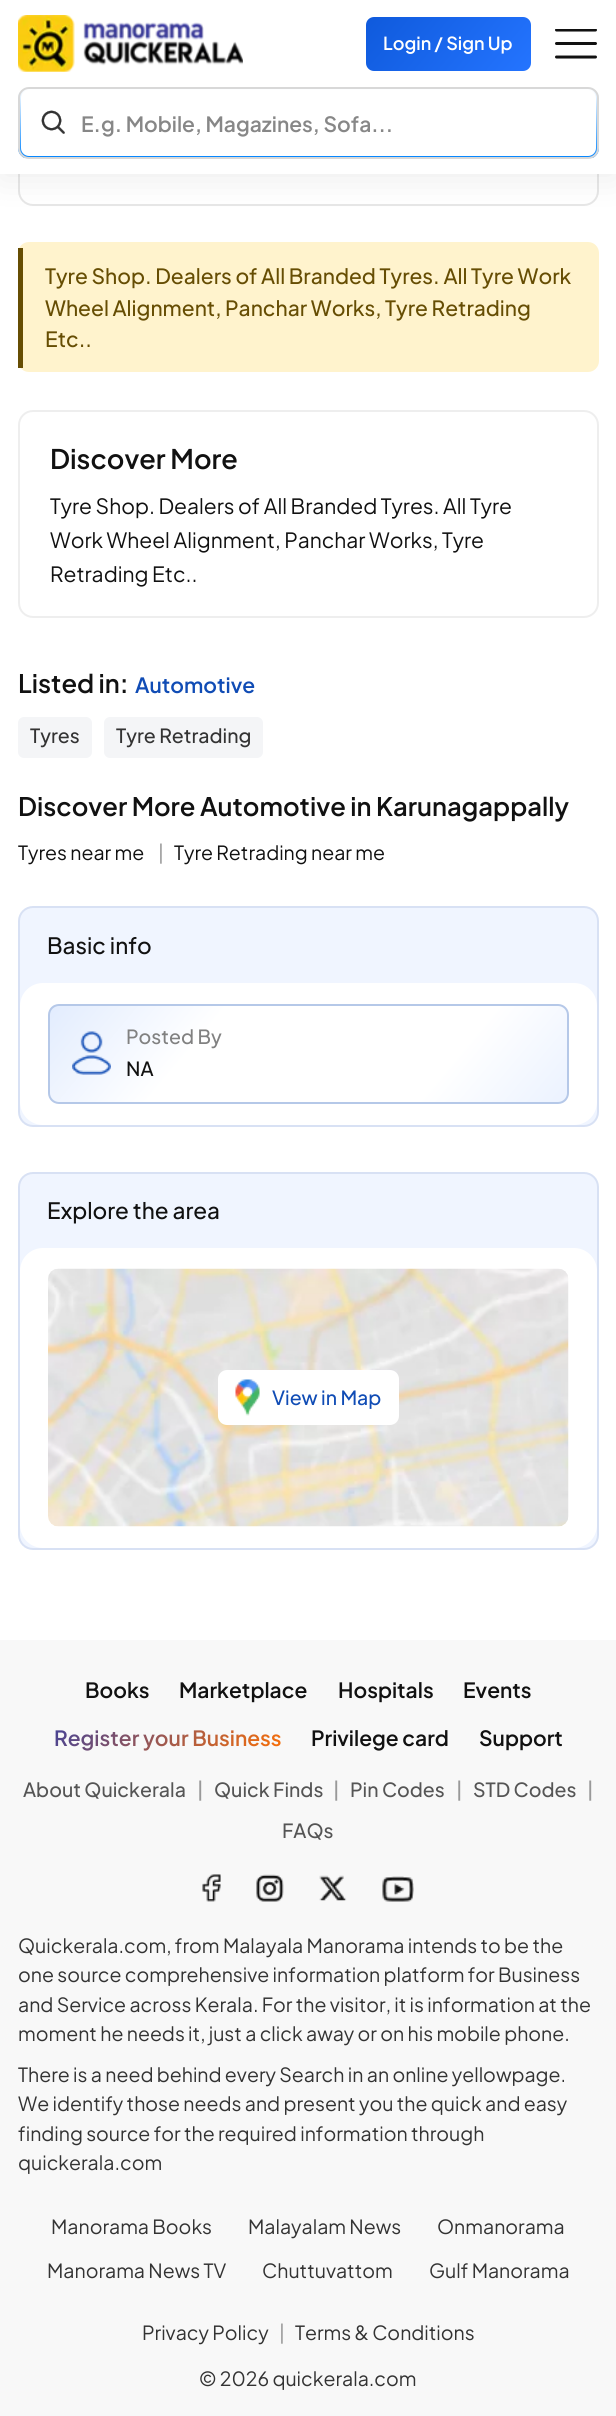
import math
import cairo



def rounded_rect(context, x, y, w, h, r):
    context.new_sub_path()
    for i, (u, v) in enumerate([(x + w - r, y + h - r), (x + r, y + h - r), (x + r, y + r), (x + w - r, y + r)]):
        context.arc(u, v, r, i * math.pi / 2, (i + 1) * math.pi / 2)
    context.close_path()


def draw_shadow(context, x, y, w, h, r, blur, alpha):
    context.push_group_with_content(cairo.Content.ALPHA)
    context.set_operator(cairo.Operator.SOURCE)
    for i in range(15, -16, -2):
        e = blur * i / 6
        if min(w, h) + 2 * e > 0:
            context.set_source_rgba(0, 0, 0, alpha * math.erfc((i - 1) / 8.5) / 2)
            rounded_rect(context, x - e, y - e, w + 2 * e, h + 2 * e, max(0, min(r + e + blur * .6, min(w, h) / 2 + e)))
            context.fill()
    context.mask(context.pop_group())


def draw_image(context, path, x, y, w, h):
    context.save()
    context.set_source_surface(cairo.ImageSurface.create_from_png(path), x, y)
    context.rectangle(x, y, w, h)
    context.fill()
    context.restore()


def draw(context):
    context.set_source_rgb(1, 1, 1)
    context.paint()
    rounded_rect(context, 19, -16, 579, 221, 14)
    context.set_source_rgb(231 / 255, 231 / 255, 231 / 255)
    context.stroke()
    context.set_source_rgb(0, 0, 0)
    draw_shadow(context, 0, 6, 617, 174, 0, 18, 0.07)
    context.set_source_rgb(1, 1, 1)
    context.rectangle(0, 0, 616, 174)
    context.fill()
    draw_image(context, "images/1.png", 18, 15, 225, 57)
    gradient = cairo.LinearGradient(387, -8, 510, 95)
    gradient.add_color_stop_rgba(0, 15 / 255, 90 / 255, 220 / 255, 1)
    gradient.add_color_stop_rgba(1, 36 / 255, 116 / 255, 1, 1)
    context.set_source(gradient)
    rounded_rect(context, 366, 17, 165, 54, 8)
    context.fill()
    draw_image(context, "images/2.png", 555, 29, 42, 30)
    context.save()
    rounded_rect(context, 18, 87, 581, 72, 11)
    context.clip()
    gradient = cairo.LinearGradient(308, 158, 308, 89)
    gradient.add_color_stop_rgba(0, 3 / 255, 133 / 255, 1, 1)
    gradient.add_color_stop_rgba(1, 1, 1, 1, 1)
    context.set_source(gradient)
    context.rectangle(18, 89, 581, 69)
    context.fill()
    context.restore()
    rounded_rect(context, 19, 88, 579, 70, 10)
    context.set_source_rgb(216 / 255, 216 / 255, 216 / 255)
    context.stroke()
    context.set_source_rgb(1, 1, 1)
    rounded_rect(context, 21, 90, 575, 66, 8)
    context.fill()
    draw_image(context, "images/3.png", 41, 110, 24, 24)
    context.set_source_rgb(1, 243 / 255, 205 / 255)
    rounded_rect(context, 18, 242, 581, 130, 11)
    context.fill()
    context.set_source_rgb(102 / 255, 77 / 255, 3 / 255)
    context.rectangle(18, 248, 5, 120)
    context.fill()
    rounded_rect(context, 19, 411, 579, 206, 14)
    context.set_source_rgb(238 / 255, 238 / 255, 238 / 255)
    context.stroke()
    context.set_source_rgb(244 / 255, 245 / 255, 247 / 255)
    rounded_rect(context, 18, 717, 74, 41, 6)
    context.fill()
    rounded_rect(context, 104, 717, 159, 41, 6)
    context.fill()
    context.set_source_rgb(240 / 255, 245 / 255, 1)
    rounded_rect(context, 19, 907, 579, 219, 14)
    context.fill_preserve()
    context.set_source_rgb(216 / 255, 225 / 255, 244 / 255)
    context.stroke()
    context.set_source_rgb(1, 1, 1)
    rounded_rect(context, 20, 983, 577, 142, 23)
    context.fill()
    context.save()
    rounded_rect(context, 48, 1004, 521, 100, 11)
    context.clip()
    gradient = cairo.LinearGradient(132, 906, 484, 1201)
    gradient.add_color_stop_rgba(0, 226 / 255, 236 / 255, 254 / 255, 1)
    gradient.add_color_stop_rgba(0.3, 1, 1, 1, 1)
    gradient.add_color_stop_rgba(0.75, 1, 1, 1, 1)
    gradient.add_color_stop_rgba(1, 235 / 255, 242 / 255, 1, 1)
    context.set_source(gradient)
    context.rectangle(50, 1005, 517, 98)
    context.fill()
    context.restore()
    rounded_rect(context, 49, 1005, 519, 98, 10)
    context.set_source_rgb(181 / 255, 200 / 255, 232 / 255)
    context.stroke()
    draw_image(context, "images/4.png", 72, 1031, 39, 44)
    context.set_source_rgb(240 / 255, 245 / 255, 1)
    rounded_rect(context, 19, 1173, 579, 376, 14)
    context.fill_preserve()
    context.set_source_rgb(216 / 255, 225 / 255, 244 / 255)
    context.stroke()
    context.set_source_rgb(1, 1, 1)
    rounded_rect(context, 20, 1248, 577, 300, 23)
    context.fill()
    draw_image(context, "images/5.png", 48, 1268, 521, 259)
    rounded_rect(context, 218, 1370, 181, 55, 9)
    context.fill()
    draw_image(context, "images/6.png", 235, 1379, 25, 37)
    context.set_source_rgb(248 / 255, 248 / 255, 248 / 255)
    context.rectangle(0, 1640, 616, 776)
    context.fill()
    draw_image(context, "images/7.png", 202, 1874, 19, 28)
    draw_image(context, "images/8.png", 256, 1874, 28, 28)
    draw_image(context, "images/9.png", 319, 1875, 28, 26)
    draw_image(context, "images/10.png", 382, 1876, 32, 26)
    context.select_font_face("Plus Jakarta Sans SemiBold")
    context.set_font_size(18)
    context.set_source_rgb(1, 1, 1)
    context.move_to(383, 50)
    context.show_text("Login / Sign Up")
    context.set_font_size(21)
    context.set_source_rgb(135 / 255, 135 / 255, 135 / 255)
    context.move_to(81, 132)
    context.show_text("E.g. Mobile, Magazines, Sofa...")
    context.select_font_face("Plus Jakarta Sans Medium")
    context.set_source_rgb(102 / 255, 77 / 255, 3 / 255)
    context.move_to(45, 284)
    context.show_text("Tyre Shop. Dealers of All Branded Tyres. All Tyre Work")
    context.move_to(45, 316)
    context.show_text("Wheel Alignment, Panchar Works, Tyre Retrading")
    context.move_to(45, 347)
    context.show_text("Etc..")
    context.select_font_face("Plus Jakarta Sans SemiBold")
    context.set_font_size(27)
    context.set_source_rgb(17 / 255, 17 / 255, 17 / 255)
    context.move_to(50, 469)
    context.show_text("Discover More")
    context.select_font_face("Plus Jakarta Sans")
    context.set_font_size(21)
    context.move_to(50, 514)
    context.show_text("Tyre Shop. Dealers of All Branded Tyres. All Tyre")
    context.move_to(50, 548)
    context.show_text("Work Wheel Alignment, Panchar Works, Tyre")
    context.move_to(50, 582)
    context.show_text("Retrading Etc..")
    context.select_font_face("Plus Jakarta Sans SemiBold")
    context.set_font_size(25.5)
    context.move_to(18, 693)
    context.show_text("Listed in:")
    context.set_font_size(21)
    context.set_source_rgb(16 / 255, 76 / 255, 181 / 255)
    context.move_to(135, 693)
    context.show_text("Automotive")
    context.select_font_face("Plus Jakarta Sans Medium")
    context.set_font_size(19.5)
    context.set_source_rgb(51 / 255, 51 / 255, 51 / 255)
    context.move_to(30, 743)
    context.show_text("Tyres")
    context.move_to(116, 743)
    context.show_text("Tyre Retrading")
    context.select_font_face("Plus Jakarta Sans SemiBold")
    context.set_font_size(25.5)
    context.set_source_rgb(17 / 255, 17 / 255, 17 / 255)
    context.move_to(18, 816)
    context.show_text("Discover More Automotive in Karunagappally")
    context.select_font_face("Plus Jakarta Sans")
    context.set_font_size(19.5)
    context.move_to(18, 860)
    context.show_text("Tyres near me")
    context.set_source_rgb(153 / 255, 153 / 255, 153 / 255)
    context.move_to(158, 860)
    context.show_text("|")
    context.set_source_rgb(17 / 255, 17 / 255, 17 / 255)
    context.move_to(174, 860)
    context.show_text("Tyre Retrading near me")
    context.select_font_face("Plus Jakarta Sans Medium")
    context.set_font_size(22.5)
    context.move_to(47, 954)
    context.show_text("Basic info")
    context.set_font_size(19.5)
    context.set_source_rgb(129 / 255, 129 / 255, 129 / 255)
    context.move_to(126, 1044)
    context.show_text("Posted By")
    context.set_source_rgb(17 / 255, 17 / 255, 17 / 255)
    context.move_to(126, 1076)
    context.show_text("NA")
    context.set_font_size(22.5)
    context.move_to(47, 1219)
    context.show_text("Explore the area")
    context.set_font_size(19.5)
    context.set_source_rgb(16 / 255, 76 / 255, 181 / 255)
    context.move_to(272, 1405)
    context.show_text("View in Map")
    context.select_font_face("Plus Jakarta Sans SemiBold")
    context.set_font_size(21)
    context.set_source_rgb(17 / 255, 17 / 255, 17 / 255)
    context.move_to(85, 1698)
    context.show_text("Books")
    context.move_to(179, 1698)
    context.show_text("Marketplace")
    context.move_to(338, 1698)
    context.show_text("Hospitals")
    context.move_to(463, 1698)
    context.show_text("Events")
    gradient = cairo.LinearGradient(91, 1673, 244, 1802)
    gradient.add_color_stop_rgba(0, 65 / 255, 66 / 255, 154 / 255, 1)
    gradient.add_color_stop_rgba(1, 254 / 255, 112 / 255, 3 / 255, 1)
    context.set_source(gradient)
    context.move_to(54, 1746)
    context.show_text("Register your Business")
    context.set_source_rgb(17 / 255, 17 / 255, 17 / 255)
    context.move_to(311, 1746)
    context.show_text("Privilege card")
    context.move_to(479, 1746)
    context.show_text("Support")
    context.select_font_face("Plus Jakarta Sans Medium")
    context.set_font_size(19.5)
    context.set_source_rgb(85 / 255, 85 / 255, 85 / 255)
    context.move_to(23, 1797)
    context.show_text("About Quickerala")
    context.set_source_rgb(153 / 255, 153 / 255, 153 / 255)
    context.move_to(197, 1797)
    context.show_text("|")
    context.set_source_rgb(85 / 255, 85 / 255, 85 / 255)
    context.move_to(214, 1797)
    context.show_text("Quick Finds")
    context.set_source_rgb(153 / 255, 153 / 255, 153 / 255)
    context.move_to(333, 1797)
    context.show_text("|")
    context.set_source_rgb(85 / 255, 85 / 255, 85 / 255)
    context.move_to(350, 1797)
    context.show_text("Pin Codes")
    context.set_source_rgb(153 / 255, 153 / 255, 153 / 255)
    context.move_to(456, 1797)
    context.show_text("|")
    context.set_source_rgb(85 / 255, 85 / 255, 85 / 255)
    context.move_to(473, 1797)
    context.show_text("STD Codes")
    context.set_source_rgb(153 / 255, 153 / 255, 153 / 255)
    context.move_to(587, 1797)
    context.show_text("|")
    context.set_source_rgb(85 / 255, 85 / 255, 85 / 255)
    context.move_to(282, 1838)
    context.show_text("FAQs")
    context.select_font_face("Plus Jakarta Sans")
    context.set_source_rgb(51 / 255, 51 / 255, 51 / 255)
    context.move_to(18, 1953)
    context.show_text("Quickerala.com, from Malayala Manorama intends to be the")
    context.move_to(18, 1982)
    context.show_text("one source comprehensive information platform for Business")
    context.move_to(18, 2012)
    context.show_text("and Service across Kerala. For the visitor, it is information at the")
    context.move_to(18, 2041)
    context.show_text("moment he needs it, just a click away or on his mobile phone.")
    context.move_to(18, 2082)
    context.show_text("There is a need behind every Search in an online yellowpage.")
    context.move_to(18, 2111)
    context.show_text("We identify those needs and present you the quick and easy")
    context.move_to(18, 2141)
    context.show_text("finding source for the required information through")
    context.move_to(18, 2170)
    context.show_text("quickerala.com")
    context.move_to(51, 2234)
    context.show_text("Manorama Books")
    context.move_to(248, 2234)
    context.show_text("Malayalam News")
    context.move_to(437, 2234)
    context.show_text("Onmanorama")
    context.move_to(47, 2278)
    context.show_text("Manorama News TV")
    context.move_to(262, 2278)
    context.show_text("Chuttuvattom")
    context.move_to(429, 2278)
    context.show_text("Gulf Manorama")
    context.move_to(142, 2340)
    context.show_text("Privacy Policy")
    context.set_source_rgb(153 / 255, 153 / 255, 153 / 255)
    context.move_to(279, 2340)
    context.show_text("|")
    context.set_source_rgb(51 / 255, 51 / 255, 51 / 255)
    context.move_to(295, 2340)
    context.show_text("Terms & Conditions")
    context.move_to(199, 2386)
    context.show_text("© 2026 quickerala.com")


surface = cairo.ImageSurface(cairo.Format.RGB24, 616, 2416)
context = cairo.Context(surface)
options = cairo.FontOptions()
options.set_hint_metrics(cairo.HintMetrics.OFF)
options.set_hint_style(cairo.HintStyle.NONE)
context.set_font_options(options)
context.set_miter_limit(4)
draw(context)
surface.write_to_png("out.png")
